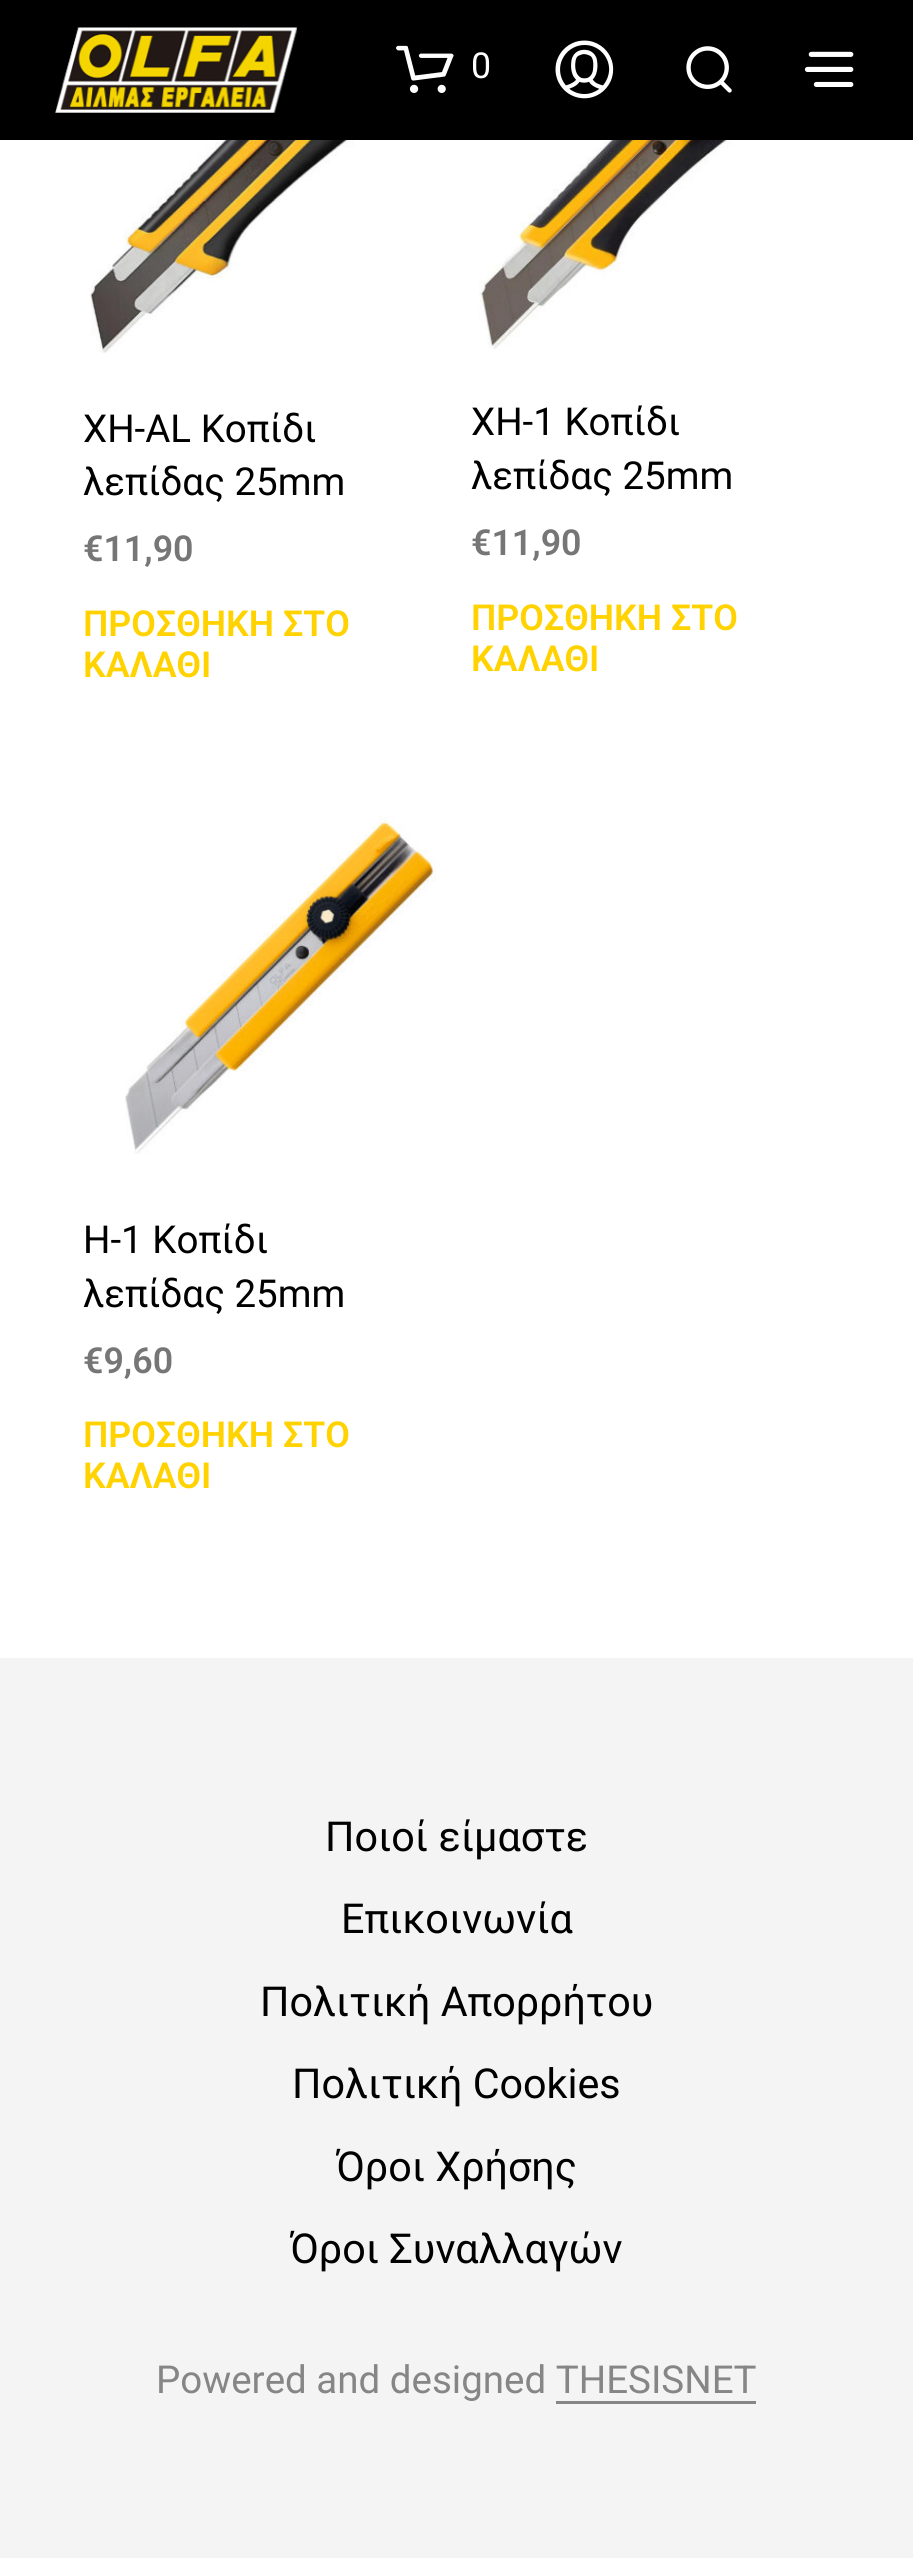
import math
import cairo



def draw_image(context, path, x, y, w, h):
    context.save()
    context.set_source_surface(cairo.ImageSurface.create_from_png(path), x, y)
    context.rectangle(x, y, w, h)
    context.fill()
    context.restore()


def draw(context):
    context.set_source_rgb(1, 1, 1)
    context.paint()
    context.set_source_rgb(0, 0, 0)
    context.rectangle(0, 0, 913, 140)
    context.fill()
    draw_image(context, "images/1.png", 55, 27, 242, 86)
    draw_image(context, "images/2.png", 396, 45, 58, 48)
    draw_image(context, "images/3.png", 555, 40, 59, 59)
    draw_image(context, "images/4.png", 686, 46, 46, 47)
    draw_image(context, "images/5.png", 804, 51, 50, 36)
    draw_image(context, "images/6.png", 90, 140, 353, 213)
    draw_image(context, "images/7.png", 479, 140, 348, 210)
    draw_image(context, "images/8.png", 125, 816, 312, 338)
    context.set_source_rgb(244 / 255, 244 / 255, 244 / 255)
    context.rectangle(0, 1658, 913, 900)
    context.fill()
    context.set_source_rgb(134 / 255, 134 / 255, 134 / 255)
    context.rectangle(556, 2401, 200, 3)
    context.fill()
    context.select_font_face("Roboto")
    context.set_font_size(35.75)
    context.set_source_rgb(1, 1, 1)
    context.move_to(471, 78)
    context.show_text("0")
    context.set_font_size(38.5)
    context.set_source_rgb(0, 0, 0)
    context.move_to(83, 442)
    context.show_text("XH-AL Κοπίδι")
    context.move_to(83, 495)
    context.show_text("λεπίδας 25mm")
    context.select_font_face("Roboto SemiBold")
    context.set_font_size(35.75)
    context.set_source_rgb(118 / 255, 118 / 255, 118 / 255)
    context.move_to(83, 561)
    context.show_text("€11,90")
    context.set_source_rgb(1, 210 / 255, 0)
    context.move_to(83, 636)
    context.show_text("ΠΡΟΣΘΗΚΗ ΣΤΟ")
    context.move_to(83, 677)
    context.show_text("ΚΑΛΑΘΙ")
    context.select_font_face("Roboto")
    context.set_font_size(38.5)
    context.set_source_rgb(0, 0, 0)
    context.move_to(471, 435)
    context.show_text("XH-1 Κοπίδι")
    context.move_to(471, 489)
    context.show_text("λεπίδας 25mm")
    context.select_font_face("Roboto SemiBold")
    context.set_font_size(35.75)
    context.set_source_rgb(118 / 255, 118 / 255, 118 / 255)
    context.move_to(471, 555)
    context.show_text("€11,90")
    context.set_source_rgb(1, 210 / 255, 0)
    context.move_to(471, 630)
    context.show_text("ΠΡΟΣΘΗΚΗ ΣΤΟ")
    context.move_to(471, 671)
    context.show_text("ΚΑΛΑΘΙ")
    context.select_font_face("Roboto")
    context.set_font_size(38.5)
    context.set_source_rgb(0, 0, 0)
    context.move_to(83, 1253)
    context.show_text("H-1 Κοπίδι")
    context.move_to(83, 1307)
    context.show_text("λεπίδας 25mm")
    context.select_font_face("Roboto SemiBold")
    context.set_font_size(35.75)
    context.set_source_rgb(118 / 255, 118 / 255, 118 / 255)
    context.move_to(83, 1373)
    context.show_text("€9,60")
    context.set_source_rgb(1, 210 / 255, 0)
    context.move_to(83, 1447)
    context.show_text("ΠΡΟΣΘΗΚΗ ΣΤΟ")
    context.move_to(83, 1488)
    context.show_text("ΚΑΛΑΘΙ")
    context.select_font_face("Roboto")
    context.set_font_size(41.25)
    context.set_source_rgb(0, 0, 0)
    context.move_to(325, 1851)
    context.show_text("Ποιοί είμαστε")
    context.move_to(341, 1933)
    context.show_text("Επικοινωνία")
    context.move_to(260, 2016)
    context.show_text("Πολιτική Απορρήτου")
    context.move_to(292, 2098)
    context.show_text("Πολιτική Cookies")
    context.move_to(336, 2181)
    context.show_text("Όροι Χρήσης")
    context.move_to(290, 2263)
    context.show_text("Όροι Συναλλαγών")
    context.set_font_size(38.5)
    context.set_source_rgb(134 / 255, 134 / 255, 134 / 255)
    context.move_to(156, 2393)
    context.show_text("Powered and designed THESISNET")


surface = cairo.ImageSurface(cairo.Format.RGB24, 913, 2558)
context = cairo.Context(surface)
options = cairo.FontOptions()
options.set_hint_metrics(cairo.HintMetrics.OFF)
options.set_hint_style(cairo.HintStyle.NONE)
context.set_font_options(options)
context.set_miter_limit(4)
draw(context)
surface.write_to_png("out.png")
